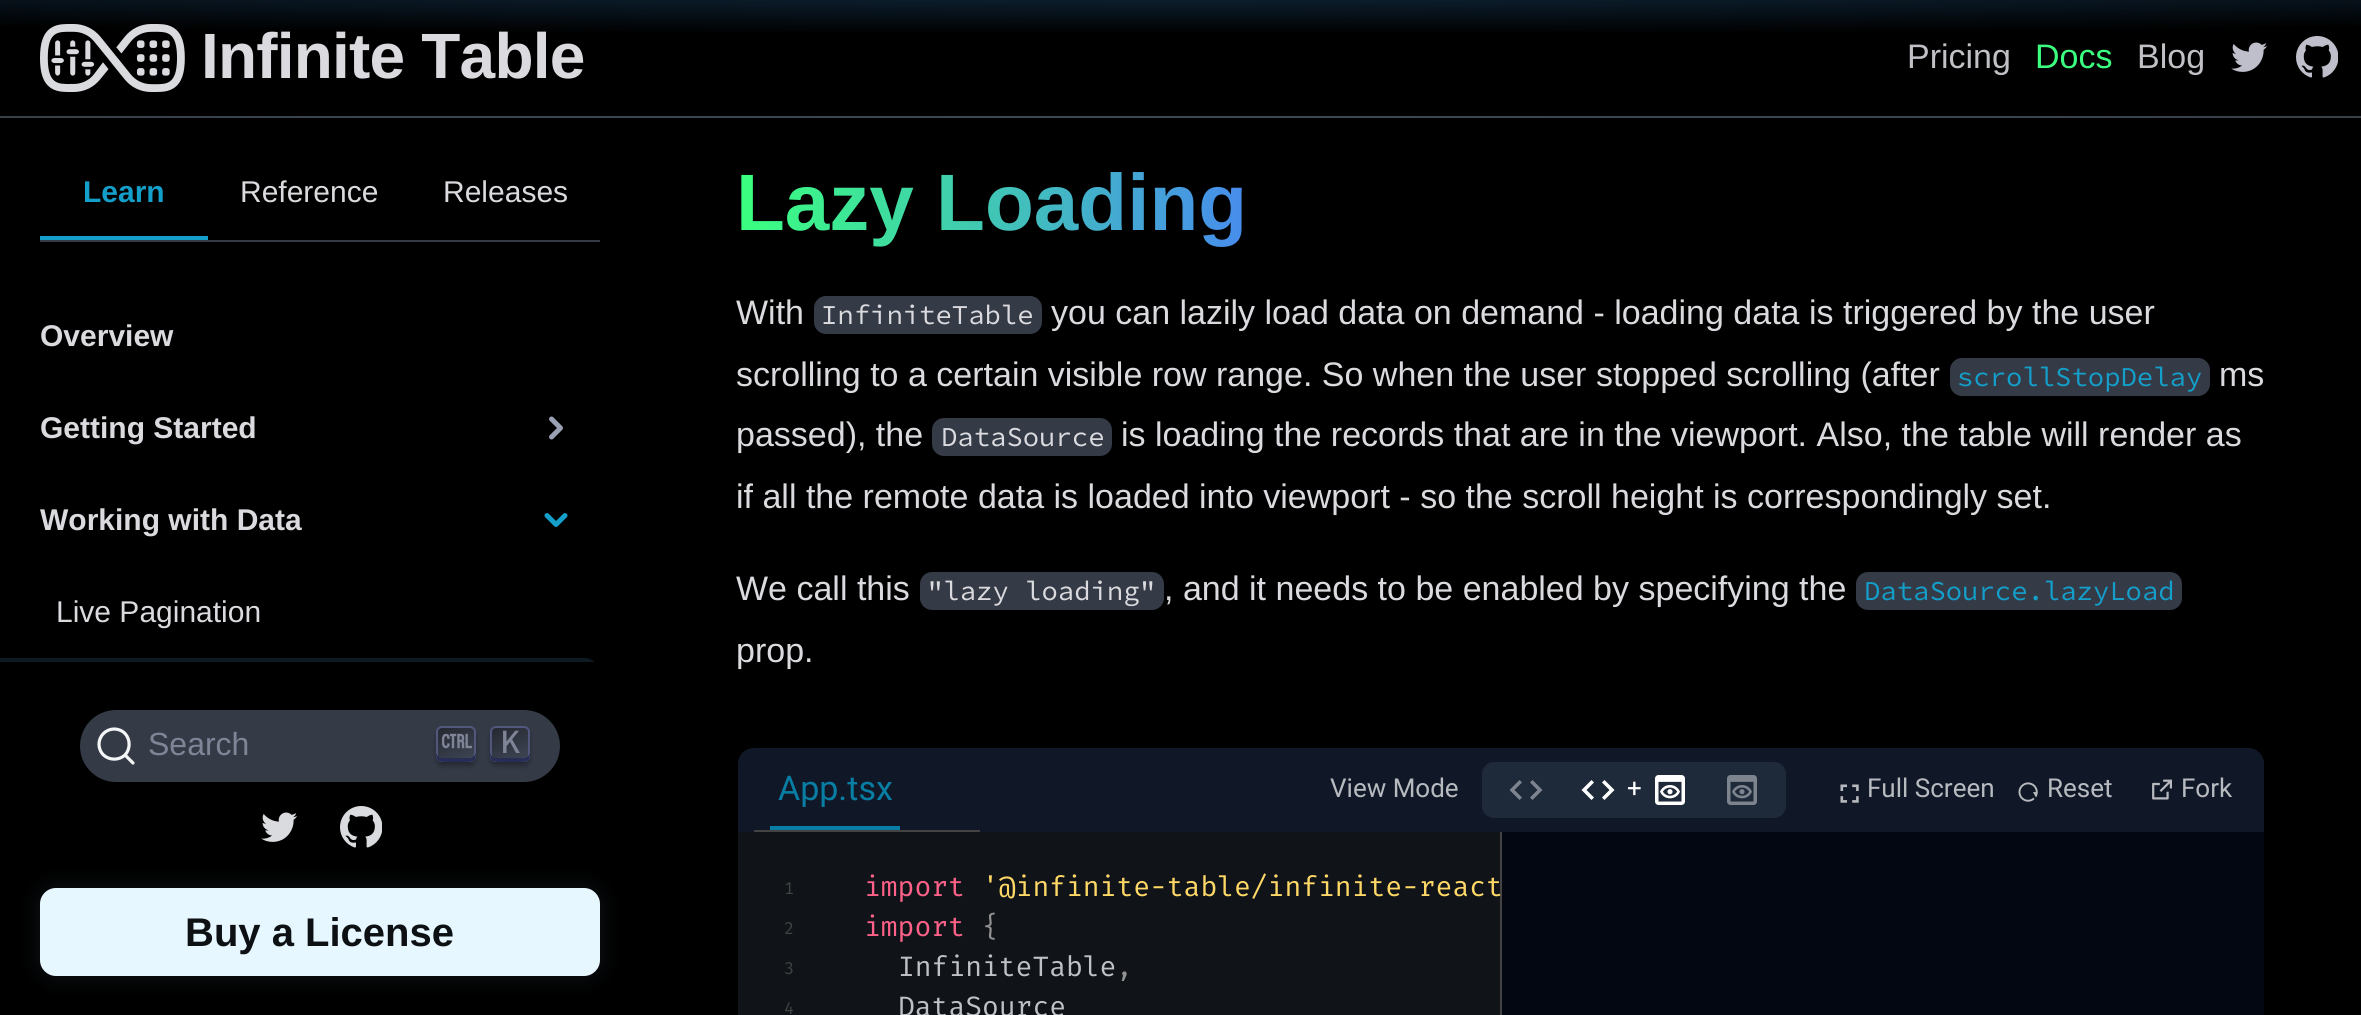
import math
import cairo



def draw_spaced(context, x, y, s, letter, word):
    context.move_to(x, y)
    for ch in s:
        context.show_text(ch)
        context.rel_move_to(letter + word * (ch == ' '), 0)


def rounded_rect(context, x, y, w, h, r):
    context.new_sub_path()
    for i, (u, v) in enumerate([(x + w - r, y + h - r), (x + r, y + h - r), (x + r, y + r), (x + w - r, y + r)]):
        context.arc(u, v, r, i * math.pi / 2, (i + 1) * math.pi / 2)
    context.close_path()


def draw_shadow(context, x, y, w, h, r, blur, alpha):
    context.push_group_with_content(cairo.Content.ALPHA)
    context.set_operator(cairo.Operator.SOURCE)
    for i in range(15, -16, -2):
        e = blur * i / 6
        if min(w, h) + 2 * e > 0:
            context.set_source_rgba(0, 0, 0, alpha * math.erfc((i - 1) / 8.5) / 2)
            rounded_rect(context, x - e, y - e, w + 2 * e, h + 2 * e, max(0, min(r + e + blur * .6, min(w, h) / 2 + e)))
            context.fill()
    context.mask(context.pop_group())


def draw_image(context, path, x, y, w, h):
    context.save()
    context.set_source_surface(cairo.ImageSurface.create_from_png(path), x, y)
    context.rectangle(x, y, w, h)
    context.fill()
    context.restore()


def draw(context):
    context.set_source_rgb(0, 0, 0)
    context.paint()
    gradient = cairo.RadialGradient(0, 0, 0, 0, 0, 1)
    gradient.set_matrix(cairo.Matrix(1 / 2362, 0, 0, 1 / 58, -1 * 1181 / 2362, -1 * -23 / 58))
    gradient.add_color_stop_rgba(0, 19 / 255, 48 / 255, 72 / 255, 1)
    gradient.add_color_stop_rgba(1, 0, 0, 0, 1)
    context.set_source(gradient)
    context.rectangle(0, 0, 2361, 33)
    context.fill()
    gradient = cairo.RadialGradient(0, 0, 0, 0, 0, 1)
    gradient.set_matrix(cairo.Matrix(1 / 2362, 0, 0, 1 / 58, -1 * 1181 / 2362, -1 * 93 / 58))
    gradient.add_color_stop_rgba(0, 66 / 255, 89 / 255, 109 / 255, 1)
    gradient.add_color_stop_rgba(1, 51 / 255, 51 / 255, 51 / 255, 1)
    context.set_source(gradient)
    context.rectangle(0, 116, 2361, 2)
    context.fill()
    draw_image(context, "images/1.png", 40, 24, 145, 68)
    draw_image(context, "images/2.png", 2231, 42, 37, 30)
    draw_image(context, "images/3.png", 2296, 36, 42, 42)
    context.set_source_rgb(52 / 255, 58 / 255, 70 / 255)
    context.rectangle(40, 240, 560, 2)
    context.fill()
    context.set_source_rgb(20 / 255, 158 / 255, 202 / 255)
    context.rectangle(40, 236, 168, 4)
    context.fill()
    draw_image(context, "images/4.png", 549, 416, 14, 24)
    draw_image(context, "images/5.png", 544, 513, 24, 14)
    context.set_source_rgb(13 / 255, 26 / 255, 33 / 255)
    context.new_path()
    context.move_to(0, 658)
    context.line_to(584, 658)
    context.curve_to(593, 658, 600, 665, 600, 674)
    context.line_to(600, 734)
    context.curve_to(600, 743, 593, 750, 584, 750)
    context.line_to(0, 750)
    context.close_path()
    context.fill()
    context.set_source_rgb(0, 0, 0)
    context.rectangle(0, 662, 600, 88)
    context.fill()
    context.set_source_rgb(52 / 255, 58 / 255, 70 / 255)
    rounded_rect(context, 80, 710, 480, 72, 36)
    context.fill()
    context.new_path()
    context.move_to(125, 755)
    context.line_to(133, 763)
    context.line_to(125, 755)
    context.curve_to(119, 760.5, 109.5, 760.5, 103.5, 755)
    context.curve_to(97.5, 749, 97.5, 739.5, 103.5, 733.5)
    context.curve_to(109.5, 727.5, 119, 727.5, 125, 733.5)
    context.curve_to(130.5, 739.5, 130.5, 749, 125, 755)
    context.close_path()
    context.set_source_rgb(245 / 255, 246 / 255, 247 / 255)
    context.set_line_width(3.2)
    context.set_line_cap(cairo.LineCap.ROUND)
    context.set_line_join(cairo.LineJoin.ROUND)
    context.stroke()
    context.set_source_rgb(3 / 255, 4 / 255, 9 / 255)
    draw_shadow(context, 436, 730, 40, 36, 6, 2, 0.3)
    gradient = cairo.LinearGradient(467, 766, 445, 722)
    gradient.add_color_stop_rgba(0, 64 / 255, 71 / 255, 86 / 255, 1)
    gradient.add_color_stop_rgba(1, 35 / 255, 39 / 255, 47 / 255, 1)
    context.set_source(gradient)
    rounded_rect(context, 437, 727, 38, 34, 5)
    context.fill_preserve()
    context.set_source_rgb(81 / 255, 87 / 255, 125 / 255)
    context.set_line_width(2)
    context.set_line_cap(cairo.LineCap.BUTT)
    context.set_line_join(cairo.LineJoin.MITER)
    context.stroke()
    context.set_source_rgb(40 / 255, 45 / 255, 85 / 255)
    context.new_path()
    context.move_to(436, 752)
    context.curve_to(436, 761, 438, 762, 447, 762)
    context.line_to(465, 762)
    context.curve_to(474, 762, 476, 761, 476, 752)
    context.curve_to(476, 755, 473, 758, 470, 758)
    context.line_to(442, 758)
    context.curve_to(439, 758, 436, 755, 436, 752)
    context.close_path()
    context.fill()
    draw_image(context, "images/6.png", 442, 733, 30, 16)
    context.set_source_rgb(3 / 255, 4 / 255, 9 / 255)
    draw_shadow(context, 490, 730, 40, 36, 6, 2, 0.3)
    gradient = cairo.LinearGradient(521, 766, 499, 722)
    gradient.add_color_stop_rgba(0, 64 / 255, 71 / 255, 86 / 255, 1)
    gradient.add_color_stop_rgba(1, 35 / 255, 39 / 255, 47 / 255, 1)
    context.set_source(gradient)
    rounded_rect(context, 491, 727, 38, 34, 5)
    context.fill_preserve()
    context.set_source_rgb(81 / 255, 87 / 255, 125 / 255)
    context.stroke()
    context.set_source_rgb(40 / 255, 45 / 255, 85 / 255)
    context.new_path()
    context.move_to(490, 752)
    context.curve_to(490, 761, 492, 762, 501, 762)
    context.line_to(519, 762)
    context.curve_to(528, 762, 530, 761, 530, 752)
    context.curve_to(530, 755, 527, 758, 524, 758)
    context.line_to(496, 758)
    context.curve_to(493, 758, 490, 755, 490, 752)
    context.close_path()
    context.fill()
    draw_image(context, "images/7.png", 261, 812, 37, 30)
    draw_image(context, "images/8.png", 340, 806, 42, 42)
    context.set_source_rgb(13 / 255, 17 / 255, 20 / 255)
    draw_shadow(context, 38, 886, 564, 92, 18, 10, 1)
    context.set_source_rgb(230 / 255, 247 / 255, 1)
    rounded_rect(context, 40, 888, 560, 88, 16)
    context.fill()
    context.set_source_rgb(52 / 255, 58 / 255, 70 / 255)
    rounded_rect(context, 814, 296, 228, 38, 12)
    context.fill()
    rounded_rect(context, 1950, 358, 260, 38, 12)
    context.fill()
    rounded_rect(context, 932, 418, 180, 38, 12)
    context.fill()
    rounded_rect(context, 920, 572, 244, 38, 12)
    context.fill()
    rounded_rect(context, 1856, 572, 326, 38, 12)
    context.fill()
    context.set_source_rgb(16 / 255, 24 / 255, 40 / 255)
    context.new_path()
    context.move_to(754, 748)
    context.line_to(2248, 748)
    context.curve_to(2257, 748, 2264, 755, 2264, 764)
    context.line_to(2264, 832)
    context.line_to(738, 832)
    context.line_to(738, 764)
    context.curve_to(738, 755, 745, 748, 754, 748)
    context.close_path()
    context.fill()
    context.set_source_rgb(68 / 255, 67 / 255, 68 / 255)
    context.rectangle(754, 830, 226, 2)
    context.fill()
    context.set_source_rgb(8 / 255, 126 / 255, 164 / 255)
    context.rectangle(770, 826, 130, 4)
    context.fill()
    context.set_source_rgb(30 / 255, 41 / 255, 57 / 255)
    rounded_rect(context, 1482, 762, 304, 56, 12)
    context.fill()
    context.set_source_rgb(126 / 255, 132 / 255, 143 / 255)
    context.new_path()
    context.move_to(1532.5, 800)
    context.line_to(1530, 797.5)
    context.line_to(1537.5, 790)
    context.line_to(1530, 782.5)
    context.line_to(1532.5, 780)
    context.line_to(1542.5, 790)
    context.close_path()
    context.move_to(1519.5, 800)
    context.line_to(1509.5, 790)
    context.line_to(1519.5, 780)
    context.line_to(1522, 782.5)
    context.line_to(1514.5, 790)
    context.line_to(1522, 797.5)
    context.close_path()
    context.fill()
    context.set_source_rgb(1, 1, 1)
    context.new_path()
    context.move_to(1604.5, 800)
    context.line_to(1602, 797.5)
    context.line_to(1609.5, 790)
    context.line_to(1602, 782.5)
    context.line_to(1604.5, 780)
    context.line_to(1614.5, 790)
    context.close_path()
    context.move_to(1591.5, 800)
    context.line_to(1581.5, 790)
    context.line_to(1591.5, 780)
    context.line_to(1594, 782.5)
    context.line_to(1586.5, 790)
    context.line_to(1594, 797.5)
    context.close_path()
    context.fill()
    draw_image(context, "images/9.png", 1655, 775, 30, 30)
    draw_image(context, "images/10.png", 1727, 775, 30, 30)
    draw_image(context, "images/11.png", 1840, 784, 19, 19)
    draw_image(context, "images/12.png", 2018, 782, 20, 20)
    draw_image(context, "images/13.png", 2152, 779, 20, 21)
    context.set_source_rgb(68 / 255, 67 / 255, 68 / 255)
    context.rectangle(1500, 832, 2, 183)
    context.fill()
    context.set_source_rgb(16 / 255, 20 / 255, 25 / 255)
    context.rectangle(738, 832, 762, 183)
    context.fill()
    context.set_source_rgb(3 / 255, 7 / 255, 18 / 255)
    context.rectangle(1502, 832, 762, 183)
    context.fill()
    context.select_font_face("Liberation Sans", cairo.FontSlant.NORMAL, cairo.FontWeight.BOLD)
    context.set_font_size(64)
    context.set_source_rgb(219 / 255, 219 / 255, 223 / 255)
    draw_spaced(context, 201, 78, "Infinite Table", -0.8, 0)
    context.select_font_face("Liberation Sans")
    context.set_font_size(34)
    context.set_source_rgb(191 / 255, 193 / 255, 197 / 255)
    context.move_to(1907, 68)
    context.show_text("Pricing")
    context.set_source_rgb(59 / 255, 1, 127 / 255)
    context.move_to(2035, 68)
    context.show_text("Docs")
    context.set_source_rgb(191 / 255, 193 / 255, 197 / 255)
    context.move_to(2137, 68)
    context.show_text("Blog")
    context.select_font_face("Liberation Sans", cairo.FontSlant.NORMAL, cairo.FontWeight.BOLD)
    context.set_font_size(30)
    context.set_source_rgb(20 / 255, 158 / 255, 202 / 255)
    context.move_to(83, 202)
    context.show_text("Learn")
    context.select_font_face("Liberation Sans")
    context.set_source_rgb(219 / 255, 219 / 255, 223 / 255)
    context.move_to(240, 202)
    context.show_text("Reference")
    context.move_to(443, 202)
    context.show_text("Releases")
    context.select_font_face("Liberation Sans", cairo.FontSlant.NORMAL, cairo.FontWeight.BOLD)
    context.move_to(40, 346)
    context.show_text("Overview")
    context.move_to(40, 438)
    context.show_text("Getting Started")
    context.move_to(40, 530)
    context.show_text("Working with Data")
    context.select_font_face("Liberation Sans")
    context.move_to(56, 622)
    context.show_text("Live Pagination")
    context.set_font_size(32)
    context.set_source_rgb(127 / 255, 132 / 255, 151 / 255)
    context.move_to(148, 755)
    context.show_text("Search")
    context.select_font_face("Source Code Pro Medium")
    context.set_font_size(34)
    context.move_to(500, 753)
    context.show_text("K")
    context.select_font_face("Liberation Sans", cairo.FontSlant.NORMAL, cairo.FontWeight.BOLD)
    context.set_font_size(40)
    context.set_source_rgb(13 / 255, 17 / 255, 20 / 255)
    context.move_to(185, 946)
    context.show_text("Buy a License")
    context.set_font_size(80)
    gradient = cairo.LinearGradient(736, 202, 1327, 202)
    gradient.add_color_stop_rgba(0.01, 59 / 255, 1, 127 / 255, 1)
    gradient.add_color_stop_rgba(1, 73 / 255, 122 / 255, 1, 1)
    context.set_source(gradient)
    context.move_to(736, 230)
    context.show_text("Lazy Loading")
    context.select_font_face("Liberation Sans")
    context.set_font_size(34)
    context.set_source_rgb(219 / 255, 219 / 255, 223 / 255)
    context.move_to(736, 324)
    context.show_text("With")
    context.select_font_face("Source Code Pro")
    context.set_font_size(27.25)
    context.move_to(821, 324)
    context.show_text("InfiniteTable")
    context.select_font_face("Liberation Sans")
    context.set_font_size(34)
    context.move_to(1051, 324)
    context.show_text("you can lazily load data on demand - loading data is triggered by the user")
    context.move_to(736, 386)
    context.show_text("scrolling to a certain visible row range. So when the user stopped scrolling (after")
    context.select_font_face("Source Code Pro")
    context.set_font_size(27.25)
    context.set_source_rgb(20 / 255, 158 / 255, 202 / 255)
    context.move_to(1957, 386)
    context.show_text("scrollStopDelay")
    context.select_font_face("Liberation Sans")
    context.set_font_size(34)
    context.set_source_rgb(219 / 255, 219 / 255, 223 / 255)
    context.move_to(2219, 386)
    context.show_text("ms")
    context.move_to(736, 446)
    context.show_text("passed), the")
    context.select_font_face("Source Code Pro")
    context.set_font_size(27.25)
    context.move_to(941, 446)
    context.show_text("DataSource")
    context.select_font_face("Liberation Sans")
    context.set_font_size(34)
    context.move_to(1121, 446)
    context.show_text("is loading the records that are in the viewport. Also, the table will render as")
    context.move_to(736, 508)
    context.show_text("if all the remote data is loaded into viewport - so the scroll height is correspondingly set.")
    context.move_to(736, 600)
    context.show_text("We call this")
    context.select_font_face("Source Code Pro")
    context.set_font_size(27.25)
    context.move_to(927, 600)
    context.show_text("\"lazy loading\"")
    context.select_font_face("Liberation Sans")
    context.set_font_size(34)
    context.move_to(1164, 600)
    context.show_text(", and it needs to be enabled by specifying the")
    context.select_font_face("Source Code Pro")
    context.set_font_size(27.25)
    context.set_source_rgb(20 / 255, 158 / 255, 202 / 255)
    context.move_to(1864, 600)
    context.show_text("DataSource.lazyLoad")
    context.select_font_face("Liberation Sans")
    context.set_font_size(34)
    context.set_source_rgb(219 / 255, 219 / 255, 223 / 255)
    context.move_to(736, 662)
    context.show_text("prop.")
    context.select_font_face("Roboto")
    context.set_source_rgb(8 / 255, 126 / 255, 164 / 255)
    context.move_to(778, 800)
    context.show_text("App.tsx")
    context.set_font_size(26)
    context.set_source_rgb(183 / 255, 186 / 255, 191 / 255)
    context.move_to(1330, 797)
    context.show_text("View Mode")
    context.set_source_rgb(1, 1, 1)
    context.move_to(1627, 797)
    context.show_text("+")
    context.set_source_rgb(183 / 255, 186 / 255, 191 / 255)
    context.move_to(1867, 797)
    context.show_text("Full Screen")
    context.move_to(2047, 797)
    context.show_text("Reset")
    context.move_to(2181, 797)
    context.show_text("Fork")
    context.select_font_face("Fira Mono")
    context.set_font_size(17)
    context.set_source_rgb(68 / 255, 67 / 255, 68 / 255)
    context.move_to(784, 894)
    context.show_text("1")
    context.move_to(784, 934)
    context.show_text("2")
    context.move_to(784, 974)
    context.show_text("3")
    context.move_to(784, 1014)
    context.show_text("4")
    context.set_font_size(28)
    context.set_source_rgb(1, 97 / 255, 136 / 255)
    context.move_to(864, 896)
    context.show_text("import")
    context.set_source_rgb(1, 216 / 255, 102 / 255)
    context.move_to(982, 896)
    context.show_text("'@infinite-table/infinite-react")
    context.set_source_rgb(1, 97 / 255, 136 / 255)
    context.move_to(864, 936)
    context.show_text("import")
    context.set_source_rgb(147 / 255, 146 / 255, 147 / 255)
    context.move_to(982, 936)
    context.show_text("{")
    context.set_source_rgb(191 / 255, 193 / 255, 197 / 255)
    context.move_to(898, 976)
    context.show_text("InfiniteTable")
    context.set_source_rgb(147 / 255, 146 / 255, 147 / 255)
    context.move_to(1116, 976)
    context.show_text(",")
    context.set_source_rgb(191 / 255, 193 / 255, 197 / 255)
    context.move_to(898, 1016)
    context.show_text("DataSource")


surface = cairo.ImageSurface(cairo.Format.RGB24, 2361, 1015)
context = cairo.Context(surface)
options = cairo.FontOptions()
options.set_hint_metrics(cairo.HintMetrics.OFF)
options.set_hint_style(cairo.HintStyle.NONE)
context.set_font_options(options)
context.set_miter_limit(4)
draw(context)
surface.write_to_png("out.png")
